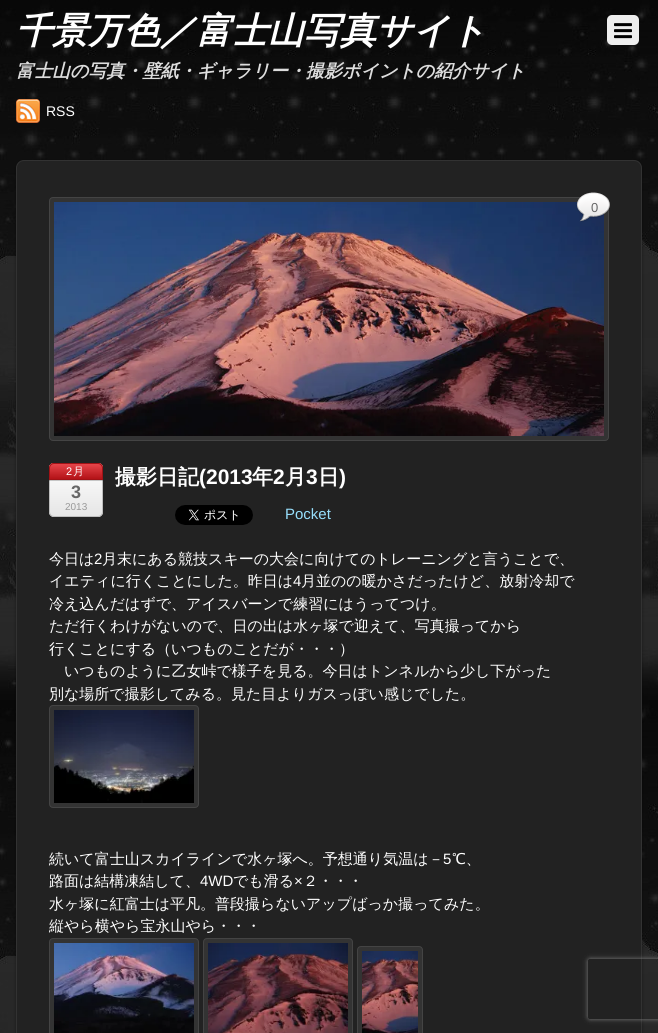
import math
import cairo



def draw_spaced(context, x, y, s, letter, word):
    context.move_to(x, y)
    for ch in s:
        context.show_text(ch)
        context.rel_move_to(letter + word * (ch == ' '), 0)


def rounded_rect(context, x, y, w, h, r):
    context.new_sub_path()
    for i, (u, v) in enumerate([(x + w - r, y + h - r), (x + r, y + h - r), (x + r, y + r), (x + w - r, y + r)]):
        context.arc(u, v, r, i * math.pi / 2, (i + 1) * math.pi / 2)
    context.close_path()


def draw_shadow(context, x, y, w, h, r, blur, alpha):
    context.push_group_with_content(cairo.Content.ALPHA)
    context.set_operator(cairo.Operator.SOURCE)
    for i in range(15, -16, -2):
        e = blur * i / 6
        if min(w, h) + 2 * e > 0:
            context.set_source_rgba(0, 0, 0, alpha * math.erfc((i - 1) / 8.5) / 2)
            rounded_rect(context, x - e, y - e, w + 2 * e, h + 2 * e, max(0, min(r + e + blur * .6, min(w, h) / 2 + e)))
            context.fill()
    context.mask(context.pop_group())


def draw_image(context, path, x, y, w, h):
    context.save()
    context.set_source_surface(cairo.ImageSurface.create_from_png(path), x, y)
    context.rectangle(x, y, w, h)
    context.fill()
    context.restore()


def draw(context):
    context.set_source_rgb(1, 1, 1)
    context.paint()
    draw_image(context, "images/1.png", 0, 0, 658, 1033)
    context.set_source_rgb(238 / 255, 238 / 255, 238 / 255)
    rounded_rect(context, 607, 15, 32, 30, 5)
    context.fill()
    draw_image(context, "images/2.png", 614, 23, 18, 16)
    draw_image(context, "images/3.png", 16, 99, 24, 24)
    context.set_source_rgb(0, 0, 0)
    draw_shadow(context, 16, 161, 626, 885, 8, 1.5, 0.4)
    context.set_source_rgb(34 / 255, 34 / 255, 34 / 255)
    rounded_rect(context, 16.5, 160.5, 625, 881, 7.5)
    context.fill_preserve()
    context.set_source_rgb(50 / 255, 50 / 255, 50 / 255)
    context.set_line_width(1)
    context.stroke()
    context.set_source_rgb(51 / 255, 51 / 255, 51 / 255)
    rounded_rect(context, 49.5, 197.5, 559, 243, 3.5)
    context.fill_preserve()
    context.set_source_rgb(68 / 255, 68 / 255, 68 / 255)
    context.stroke()
    draw_image(context, "images/4.png", 54, 202, 550, 234)
    draw_image(context, "images/5.png", 576, 192, 34, 30)
    context.set_source_rgb(1, 1, 1)
    rounded_rect(context, 49, 463, 54, 54, 5)
    context.fill()
    context.save()
    rounded_rect(context, 49, 463, 54, 54, 5)
    context.clip()
    gradient = cairo.LinearGradient(76, 464, 76, 516)
    gradient.add_color_stop_rgba(0, 0, 0, 0, 0)
    gradient.add_color_stop_rgba(1, 0, 0, 0, 0.1)
    context.set_source(gradient)
    context.rectangle(49, 480, 54, 36)
    context.fill()
    context.restore()
    rounded_rect(context, 49.5, 463.5, 53, 53, 4.5)
    context.set_source_rgb(190 / 255, 190 / 255, 190 / 255)
    context.stroke()
    context.set_source_rgba(0, 0, 0, 0.2)
    context.rectangle(49, 480, 54, 1)
    context.fill()
    context.set_source_rgb(224 / 255, 22 / 255, 29 / 255)
    context.new_path()
    context.move_to(54, 463)
    context.line_to(98, 463)
    context.curve_to(101, 463, 103, 465, 103, 468)
    context.line_to(103, 480)
    context.line_to(49, 480)
    context.line_to(49, 468)
    context.curve_to(49, 465, 51, 463, 54, 463)
    context.close_path()
    context.fill()
    context.save()
    context.new_path()
    context.move_to(54, 463)
    context.line_to(98, 463)
    context.curve_to(101, 463, 103, 465, 103, 468)
    context.line_to(103, 480)
    context.line_to(49, 480)
    context.line_to(49, 468)
    context.curve_to(49, 465, 51, 463, 54, 463)
    context.close_path()
    context.clip()
    gradient = cairo.LinearGradient(76, 464, 76, 479)
    gradient.add_color_stop_rgba(0, 1, 1, 1, 0.2)
    gradient.add_color_stop_rgba(1, 0, 0, 0, 0.2)
    context.set_source(gradient)
    context.rectangle(49, 464, 54, 15)
    context.fill()
    context.restore()
    context.new_path()
    context.move_to(54, 463.5)
    context.line_to(98, 463.5)
    context.curve_to(100.5, 463.5, 102.5, 465.5, 102.5, 468)
    context.line_to(102.5, 479.5)
    context.line_to(49.5, 479.5)
    context.line_to(49.5, 468)
    context.curve_to(49.5, 465.5, 51.5, 463.5, 54, 463.5)
    context.close_path()
    context.set_source_rgb(161 / 255, 18 / 255, 22 / 255)
    context.stroke()
    draw_image(context, "images/6.png", 175, 505, 78, 20)
    context.set_source_rgb(51 / 255, 51 / 255, 51 / 255)
    rounded_rect(context, 49.5, 705.5, 149, 102, 3.5)
    context.fill_preserve()
    context.set_source_rgb(68 / 255, 68 / 255, 68 / 255)
    context.stroke()
    draw_image(context, "images/7.png", 54, 710, 140, 93)
    context.set_source_rgb(51 / 255, 51 / 255, 51 / 255)
    rounded_rect(context, 49.5, 938.5, 149, 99, 3.5)
    context.fill_preserve()
    context.set_source_rgb(68 / 255, 68 / 255, 68 / 255)
    context.stroke()
    context.set_source_rgb(51 / 255, 51 / 255, 51 / 255)
    rounded_rect(context, 203.5, 938.5, 149, 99, 3.5)
    context.fill_preserve()
    context.set_source_rgb(68 / 255, 68 / 255, 68 / 255)
    context.stroke()
    draw_image(context, "images/8.png", 54, 943, 140, 90)
    draw_image(context, "images/9.png", 208, 943, 140, 90)
    context.set_source_rgb(51 / 255, 51 / 255, 51 / 255)
    rounded_rect(context, 357.5, 946.5, 65, 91, 3.5)
    context.fill_preserve()
    context.set_source_rgb(68 / 255, 68 / 255, 68 / 255)
    context.stroke()
    draw_image(context, "images/10.png", 362, 951, 56, 82)
    context.save()
    context.set_fill_rule(cairo.FillRule.EVEN_ODD)
    context.new_path()
    context.move_to(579, 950)
    context.line_to(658, 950)
    context.line_to(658, 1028)
    context.line_to(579, 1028)
    context.close_path()
    context.move_to(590, 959)
    context.line_to(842, 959)
    context.curve_to(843, 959, 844, 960, 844, 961)
    context.line_to(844, 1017)
    context.curve_to(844, 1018, 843, 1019, 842, 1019)
    context.line_to(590, 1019)
    context.curve_to(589, 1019, 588, 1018, 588, 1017)
    context.line_to(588, 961)
    context.curve_to(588, 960, 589, 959, 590, 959)
    context.close_path()
    context.clip()
    context.set_source_rgb(128 / 255, 128 / 255, 128 / 255)
    draw_shadow(context, 588, 959, 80, 60, 2, 2.5, 1)
    context.restore()
    context.select_font_face("WenQuanYi Zen Hei", cairo.FontSlant.ITALIC, cairo.FontWeight.BOLD)
    context.set_font_size(36)
    context.set_source_rgb(1, 1, 1)
    context.move_to(16, 43)
    context.show_text("千景万色／富士山写真サイト")
    context.set_font_size(18)
    context.set_source_rgb(221 / 255, 221 / 255, 221 / 255)
    context.move_to(16, 77)
    context.show_text("富士山の写真・壁紙・ギャラリー・撮影ポイントの紹介サイト")
    context.select_font_face("Liberation Sans")
    context.set_font_size(14)
    context.set_source_rgb(1, 1, 1)
    context.move_to(46, 116)
    context.show_text("RSS")
    context.set_font_size(13)
    context.set_source_rgb(102 / 255, 102 / 255, 102 / 255)
    context.move_to(591, 212)
    context.show_text("0")
    context.set_font_size(11)
    context.set_source_rgb(1, 1, 1)
    draw_spaced(context, 66, 475, "2", 1, 0)
    context.select_font_face("WenQuanYi Zen Hei Medium")
    draw_spaced(context, 73, 475, "月", 1, 0)
    context.select_font_face("Liberation Sans", cairo.FontSlant.NORMAL, cairo.FontWeight.BOLD)
    context.set_font_size(18)
    context.set_source_rgb(102 / 255, 102 / 255, 102 / 255)
    context.move_to(71, 498)
    context.show_text("3")
    context.select_font_face("Liberation Sans")
    context.set_font_size(10)
    context.set_source_rgb(153 / 255, 153 / 255, 153 / 255)
    context.move_to(65, 510)
    context.show_text("2013")
    context.select_font_face("WenQuanYi Zen Hei", cairo.FontSlant.NORMAL, cairo.FontWeight.BOLD)
    context.set_font_size(21)
    context.set_source_rgb(1, 1, 1)
    context.move_to(115, 484)
    context.show_text("撮影日記")
    context.select_font_face("Liberation Sans", cairo.FontSlant.NORMAL, cairo.FontWeight.BOLD)
    context.move_to(199, 484)
    context.show_text("(2013")
    context.select_font_face("WenQuanYi Zen Hei", cairo.FontSlant.NORMAL, cairo.FontWeight.BOLD)
    context.move_to(252, 484)
    context.show_text("年")
    context.select_font_face("Liberation Sans", cairo.FontSlant.NORMAL, cairo.FontWeight.BOLD)
    context.move_to(273, 484)
    context.show_text("2")
    context.select_font_face("WenQuanYi Zen Hei", cairo.FontSlant.NORMAL, cairo.FontWeight.BOLD)
    context.move_to(285, 484)
    context.show_text("月")
    context.select_font_face("Liberation Sans", cairo.FontSlant.NORMAL, cairo.FontWeight.BOLD)
    context.move_to(306, 484)
    context.show_text("3")
    context.select_font_face("WenQuanYi Zen Hei", cairo.FontSlant.NORMAL, cairo.FontWeight.BOLD)
    context.move_to(318, 484)
    context.show_text("日")
    context.select_font_face("Liberation Sans", cairo.FontSlant.NORMAL, cairo.FontWeight.BOLD)
    context.move_to(339, 484)
    context.show_text(")")
    context.select_font_face("Liberation Sans")
    context.set_font_size(15)
    context.set_source_rgb(151 / 255, 223 / 255, 252 / 255)
    context.move_to(285, 519)
    context.show_text("Pocket")
    context.select_font_face("WenQuanYi Zen Hei Medium")
    context.set_source_rgb(1, 1, 1)
    context.move_to(49, 564)
    context.show_text("今日は")
    context.select_font_face("Liberation Sans")
    context.move_to(94, 564)
    context.show_text("2")
    context.select_font_face("WenQuanYi Zen Hei Medium")
    context.move_to(102, 564)
    context.show_text("月末にある競技スキーの大会に向けてのトレーニングと言うことで、")
    context.move_to(49, 586)
    context.show_text("イエティに行くことにした。昨日は")
    context.select_font_face("Liberation Sans")
    context.move_to(293, 586)
    context.show_text("4")
    context.select_font_face("WenQuanYi Zen Hei Medium")
    context.move_to(301, 586)
    context.show_text("月並のの暖かさだったけど、放射冷却で")
    context.move_to(49, 609)
    context.show_text("冷え込んだはずで、アイスバーンで練習にはうってつけ。")
    context.move_to(49, 631)
    context.show_text("ただ行くわけがないので、日の出は水ヶ塚で迎えて、写真撮ってから")
    context.move_to(49, 654)
    context.show_text("行くことにする（いつものことだが・・・）")
    context.move_to(64, 676)
    context.show_text("いつものように乙女峠で様子を見る。今日はトンネルから少し下がった")
    context.move_to(49, 699)
    context.show_text("別な場所で撮影してみる。見た目よりガスっぽい感じでした。")
    context.move_to(49, 864)
    context.show_text("続いて富士山スカイラインで水ヶ塚へ。予想通り気温は－")
    context.select_font_face("Liberation Sans")
    context.move_to(443, 864)
    context.show_text("5")
    context.select_font_face("WenQuanYi Zen Hei Medium")
    context.move_to(452, 864)
    context.show_text("℃、")
    context.move_to(49, 886)
    context.show_text("路面は結構凍結して、")
    context.select_font_face("Liberation Sans")
    context.move_to(200, 886)
    context.show_text("4WD")
    context.select_font_face("WenQuanYi Zen Hei Medium")
    context.move_to(233, 886)
    context.show_text("でも滑る")
    context.select_font_face("Liberation Sans")
    context.move_to(294, 886)
    context.show_text("×")
    context.select_font_face("WenQuanYi Zen Hei Medium")
    context.move_to(303, 886)
    context.show_text("２・・・")
    context.move_to(49, 909)
    context.show_text("水ヶ塚に紅富士は平凡。普段撮らないアップばっか撮ってみた。")
    context.move_to(49, 931)
    context.show_text("縦やら横やら宝永山やら・・・")


surface = cairo.ImageSurface(cairo.Format.RGB24, 658, 1033)
context = cairo.Context(surface)
options = cairo.FontOptions()
options.set_hint_metrics(cairo.HintMetrics.OFF)
options.set_hint_style(cairo.HintStyle.NONE)
context.set_font_options(options)
context.set_miter_limit(4)
draw(context)
surface.write_to_png("out.png")
